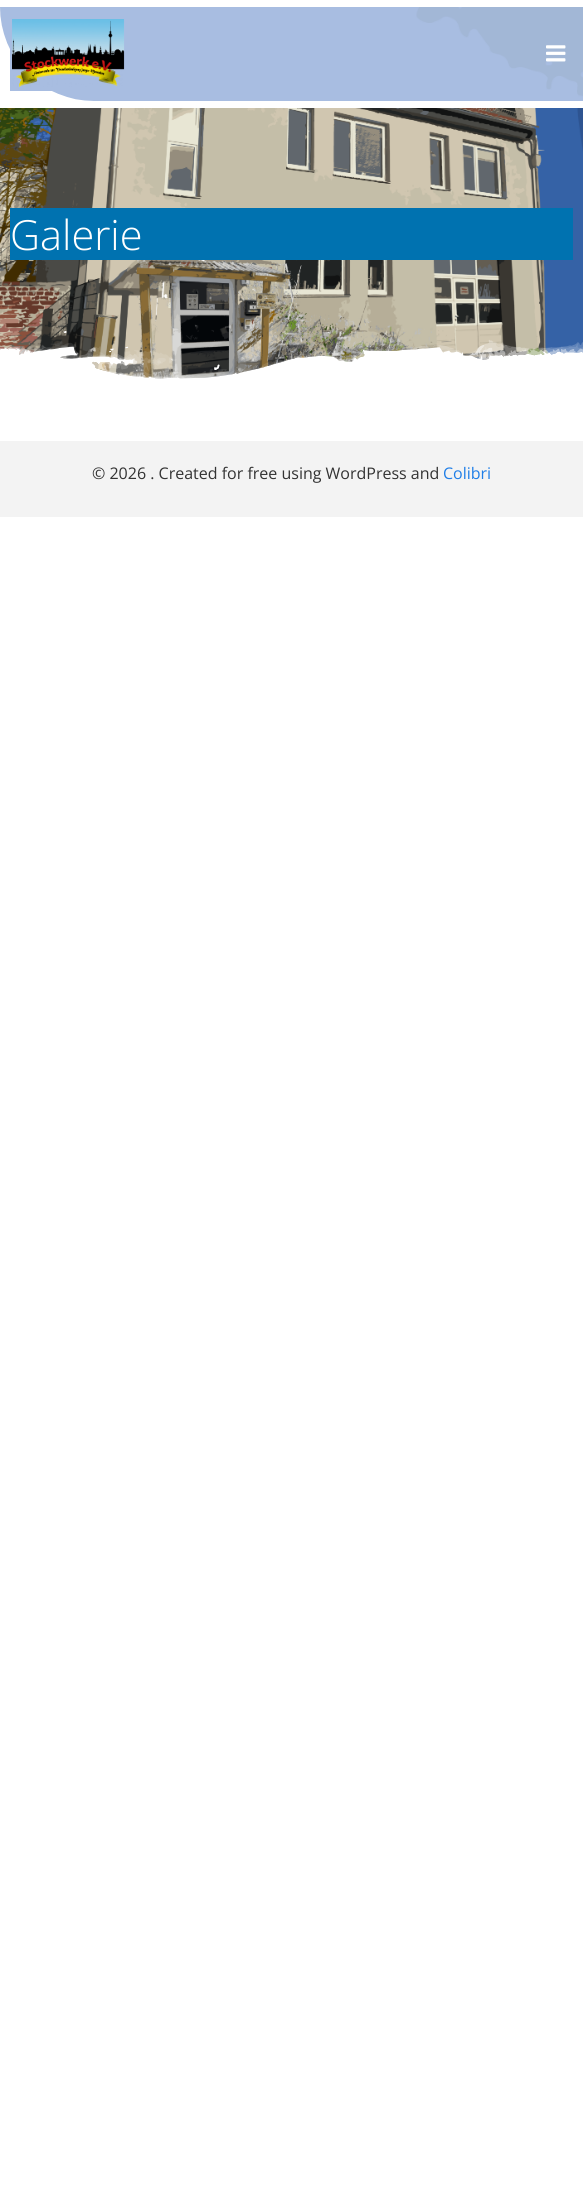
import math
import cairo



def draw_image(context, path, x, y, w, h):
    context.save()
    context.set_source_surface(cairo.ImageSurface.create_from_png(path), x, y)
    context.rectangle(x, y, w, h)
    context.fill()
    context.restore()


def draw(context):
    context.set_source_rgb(1, 1, 1)
    context.paint()
    draw_image(context, "images/1.png", 0, 7, 583, 94)
    context.set_source_rgb(168 / 255, 189 / 255, 225 / 255)
    context.rectangle(10, 49, 42, 42)
    context.fill()
    draw_image(context, "images/2.png", 12, 19, 113, 68)
    draw_image(context, "images/3.png", 546, 45, 20, 17)
    draw_image(context, "images/4.png", 0, 108, 583, 271)
    context.set_source_rgb(0, 114 / 255, 176 / 255)
    context.rectangle(10, 208, 563, 52)
    context.fill()
    draw_image(context, "images/5.png", 0, 331, 583, 49)
    context.set_source_rgb(243 / 255, 243 / 255, 243 / 255)
    context.rectangle(0, 441, 583, 76)
    context.fill()
    context.select_font_face("Open Sans Light")
    context.set_font_size(41.5)
    context.set_source_rgb(1, 1, 1)
    context.move_to(10, 250)
    context.show_text("Galerie")
    context.select_font_face("Open Sans")
    context.set_font_size(16)
    context.set_source_rgb(51 / 255, 51 / 255, 51 / 255)
    context.move_to(92, 479)
    context.show_text("© 2026 . Created for free using WordPress and")
    context.set_source_rgb(31 / 255, 126 / 255, 231 / 255)
    context.move_to(443, 479)
    context.show_text("Colibri")


surface = cairo.ImageSurface(cairo.Format.RGB24, 583, 2202)
context = cairo.Context(surface)
options = cairo.FontOptions()
options.set_hint_metrics(cairo.HintMetrics.OFF)
options.set_hint_style(cairo.HintStyle.NONE)
context.set_font_options(options)
context.set_miter_limit(4)
draw(context)
surface.write_to_png("out.png")
